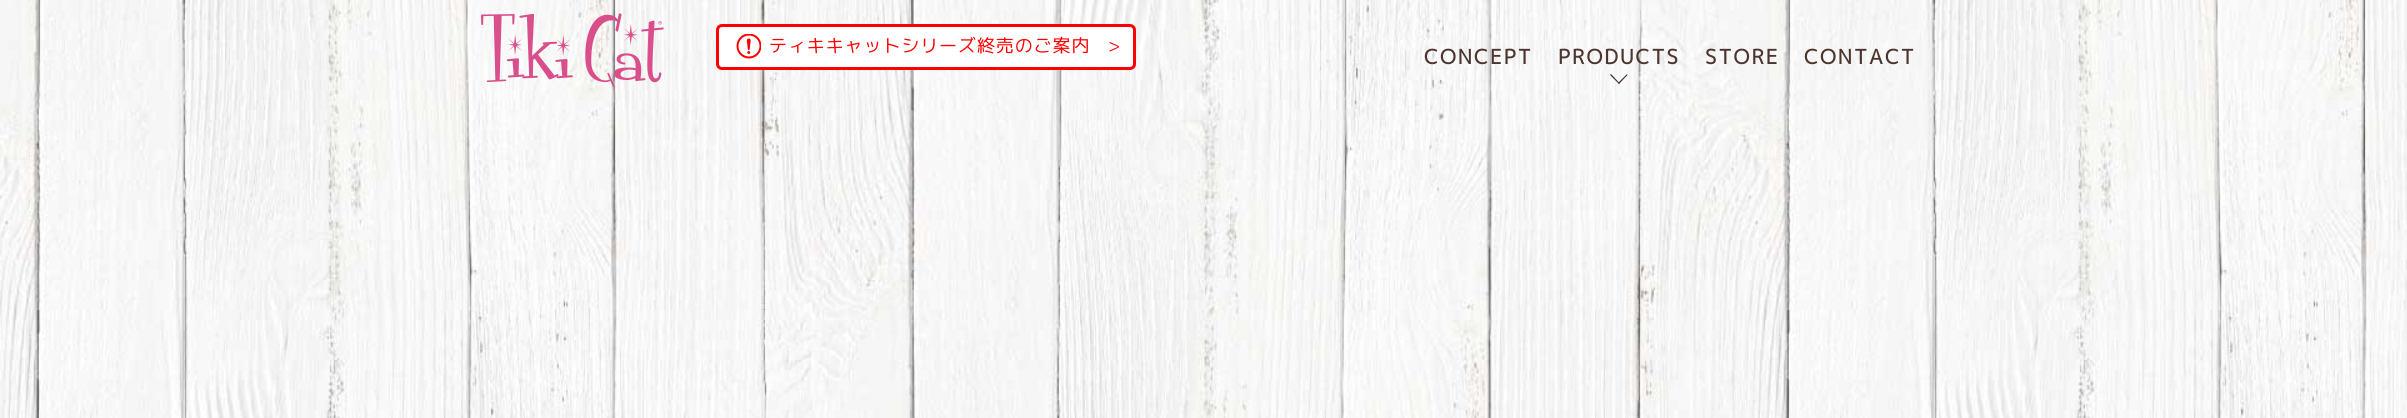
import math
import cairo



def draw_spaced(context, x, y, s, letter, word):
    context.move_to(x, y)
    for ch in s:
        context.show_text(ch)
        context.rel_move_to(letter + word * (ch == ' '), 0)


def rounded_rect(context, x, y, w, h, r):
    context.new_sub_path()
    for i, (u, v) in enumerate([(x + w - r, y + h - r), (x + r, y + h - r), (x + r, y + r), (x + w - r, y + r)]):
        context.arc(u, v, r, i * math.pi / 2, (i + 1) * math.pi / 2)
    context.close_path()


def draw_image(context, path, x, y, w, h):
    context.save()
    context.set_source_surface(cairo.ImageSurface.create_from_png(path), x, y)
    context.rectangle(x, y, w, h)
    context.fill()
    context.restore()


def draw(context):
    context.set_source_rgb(1, 1, 1)
    context.paint()
    draw_image(context, "images/1.png", 0, 0, 2407, 418)
    draw_image(context, "images/2.png", 481, 13, 183, 74)
    context.set_source_rgb(1, 1, 1)
    rounded_rect(context, 717.5, 25.5, 417, 43, 4.5)
    context.fill_preserve()
    context.set_source_rgb(1, 0, 0)
    context.set_line_width(3)
    context.stroke()
    draw_image(context, "images/3.png", 736, 34, 25, 25)
    context.set_source_rgb(76 / 255, 53 / 255, 46 / 255)
    context.new_path()
    context.move_to(1627, 74)
    context.line_to(1627.5, 75)
    context.line_to(1619, 84)
    context.line_to(1618, 83)
    context.close_path()
    context.fill()
    context.new_path()
    context.move_to(1611, 74)
    context.line_to(1619.5, 83)
    context.line_to(1619, 84)
    context.line_to(1610, 75)
    context.close_path()
    context.fill()
    context.select_font_face("M PLUS 1p")
    context.set_font_size(18)
    context.set_source_rgb(1, 0, 0)
    draw_spaced(context, 769, 52, "ティキキャットシリーズ終売のご案内", 0.9, 0)
    draw_spaced(context, 1108, 52, ">", 0.9, 0)
    context.select_font_face("M PLUS 1p", cairo.FontSlant.NORMAL, cairo.FontWeight.BOLD)
    context.set_font_size(20)
    context.set_source_rgb(76 / 255, 53 / 255, 46 / 255)
    draw_spaced(context, 1424, 64, "CONCEPT", 2, 0)
    draw_spaced(context, 1558, 64, "PRODUCTS", 2, 0)
    draw_spaced(context, 1705, 64, "STORE", 2, 0)
    draw_spaced(context, 1804, 64, "CONTACT", 2, 0)


surface = cairo.ImageSurface(cairo.Format.RGB24, 2407, 418)
context = cairo.Context(surface)
options = cairo.FontOptions()
options.set_hint_metrics(cairo.HintMetrics.OFF)
options.set_hint_style(cairo.HintStyle.NONE)
context.set_font_options(options)
context.set_miter_limit(4)
draw(context)
surface.write_to_png("out.png")
